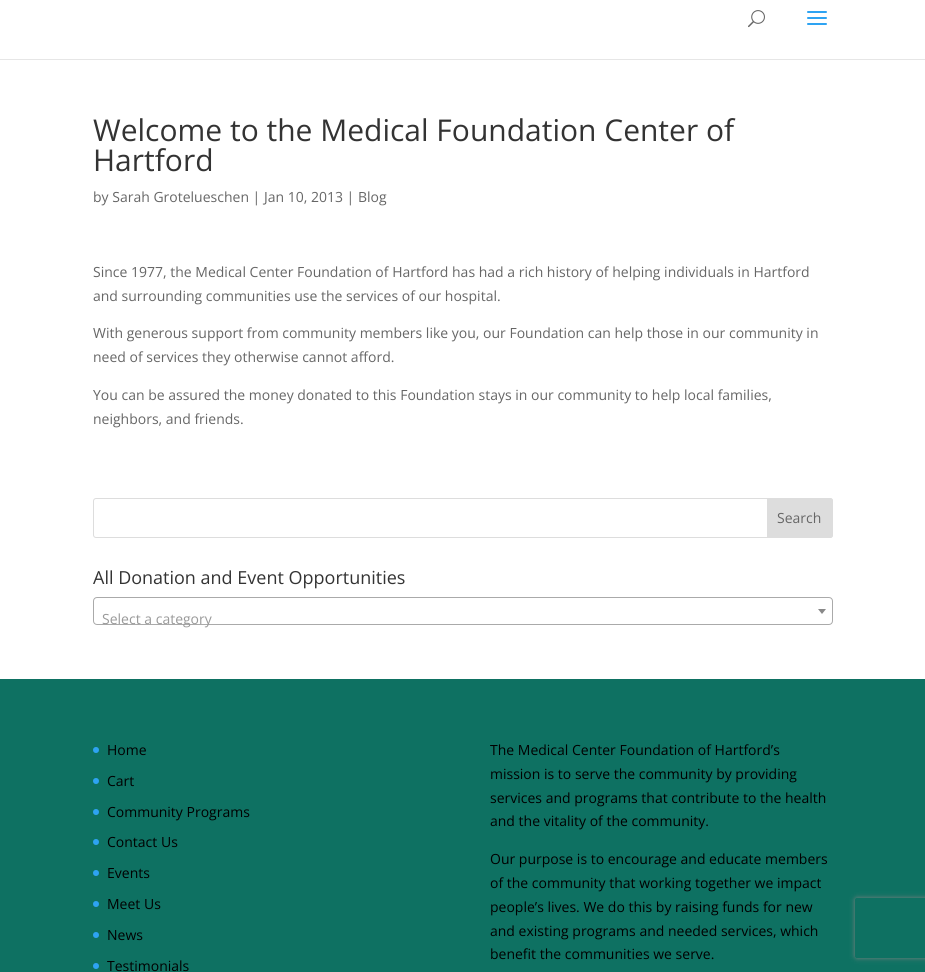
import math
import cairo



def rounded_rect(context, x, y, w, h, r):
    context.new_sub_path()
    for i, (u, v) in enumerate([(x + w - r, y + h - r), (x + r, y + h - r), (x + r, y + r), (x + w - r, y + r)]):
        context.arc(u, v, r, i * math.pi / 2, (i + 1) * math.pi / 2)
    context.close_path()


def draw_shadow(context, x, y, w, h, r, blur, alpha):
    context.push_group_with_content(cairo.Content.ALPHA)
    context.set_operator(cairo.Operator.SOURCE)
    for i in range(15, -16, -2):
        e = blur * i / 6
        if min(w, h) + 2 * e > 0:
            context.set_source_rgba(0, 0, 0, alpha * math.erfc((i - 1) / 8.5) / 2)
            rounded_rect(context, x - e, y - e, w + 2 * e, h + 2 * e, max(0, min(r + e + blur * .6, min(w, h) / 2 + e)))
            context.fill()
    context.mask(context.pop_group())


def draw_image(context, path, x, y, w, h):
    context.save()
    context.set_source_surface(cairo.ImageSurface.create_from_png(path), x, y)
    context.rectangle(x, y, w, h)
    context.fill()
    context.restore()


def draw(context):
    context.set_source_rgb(1, 1, 1)
    context.paint()
    context.set_source_rgb(230 / 255, 230 / 255, 230 / 255)
    context.rectangle(0, 59, 925, 1)
    context.fill()
    draw_image(context, "images/1.png", 748, 10, 17, 18)
    draw_image(context, "images/2.png", 807, 11, 20, 14)
    rounded_rect(context, 93.5, 498.5, 739, 39, 2.5)
    context.set_source_rgb(221 / 255, 221 / 255, 221 / 255)
    context.set_line_width(1)
    context.stroke()
    context.new_path()
    context.move_to(767.5, 498.5)
    context.line_to(830, 498.5)
    context.curve_to(831.5, 498.5, 832.5, 499.5, 832.5, 501)
    context.line_to(832.5, 535)
    context.curve_to(832.5, 536.5, 831.5, 537.5, 830, 537.5)
    context.line_to(767.5, 537.5)
    context.close_path()
    context.fill_preserve()
    context.stroke()
    rounded_rect(context, 93.5, 597.5, 739, 27, 3.5)
    context.set_source_rgb(170 / 255, 170 / 255, 170 / 255)
    context.stroke()
    context.set_source_rgb(136 / 255, 136 / 255, 136 / 255)
    context.new_path()
    context.move_to(818, 609)
    context.line_to(826, 609)
    context.line_to(822, 614)
    context.close_path()
    context.fill()
    context.set_source_rgb(14 / 255, 113 / 255, 98 / 255)
    context.rectangle(0, 679, 925, 293)
    context.fill()
    context.set_source_rgb(46 / 255, 163 / 255, 242 / 255)
    context.arc(96, 750, 3, 0, 2 * math.pi)
    context.fill()
    context.arc(96, 781, 3, 0, 2 * math.pi)
    context.fill()
    context.arc(96, 812, 3, 0, 2 * math.pi)
    context.fill()
    context.arc(96, 842, 3, 0, 2 * math.pi)
    context.fill()
    context.arc(96, 873, 3, 0, 2 * math.pi)
    context.fill()
    context.arc(96, 904, 3, 0, 2 * math.pi)
    context.fill()
    context.arc(96, 935, 3, 0, 2 * math.pi)
    context.fill()
    context.arc(96, 966, 3, 0, 2 * math.pi)
    context.fill()
    context.save()
    context.set_fill_rule(cairo.FillRule.EVEN_ODD)
    context.new_path()
    context.move_to(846, 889)
    context.line_to(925, 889)
    context.line_to(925, 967)
    context.line_to(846, 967)
    context.close_path()
    context.move_to(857, 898)
    context.line_to(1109, 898)
    context.curve_to(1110, 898, 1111, 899, 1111, 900)
    context.line_to(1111, 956)
    context.curve_to(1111, 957, 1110, 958, 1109, 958)
    context.line_to(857, 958)
    context.curve_to(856, 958, 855, 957, 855, 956)
    context.line_to(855, 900)
    context.curve_to(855, 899, 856, 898, 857, 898)
    context.close_path()
    context.clip()
    context.set_source_rgb(128 / 255, 128 / 255, 128 / 255)
    draw_shadow(context, 855, 898, 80, 60, 2, 2.5, 1)
    context.restore()
    context.select_font_face("Open Sans")
    context.set_font_size(30)
    context.set_source_rgb(51 / 255, 51 / 255, 51 / 255)
    context.move_to(93, 141)
    context.show_text("Welcome to the Medical Foundation Center of")
    context.move_to(93, 171)
    context.show_text("Hartford")
    context.set_font_size(14)
    context.set_source_rgb(102 / 255, 102 / 255, 102 / 255)
    context.move_to(93, 202)
    context.show_text("by Sarah Grotelueschen | Jan 10, 2013 | Blog")
    context.move_to(93, 277)
    context.show_text("Since 1977, the Medical Center Foundation of Hartford has had a rich history of helping individuals in Hartford")
    context.move_to(93, 301)
    context.show_text("and surrounding communities use the services of our hospital.")
    context.move_to(93, 338)
    context.show_text("With generous support from community members like you, our Foundation can help those in our community in")
    context.move_to(93, 362)
    context.show_text("need of services they otherwise cannot afford.")
    context.move_to(93, 400)
    context.show_text("You can be assured the money donated to this Foundation stays in our community to help local families,")
    context.move_to(93, 424)
    context.show_text("neighbors, and friends.")
    context.move_to(777, 523)
    context.show_text("Search")
    context.set_font_size(18)
    context.set_source_rgb(51 / 255, 51 / 255, 51 / 255)
    context.move_to(93, 584)
    context.show_text("All Donation and Event Opportunities")
    context.set_font_size(14)
    context.set_source_rgb(153 / 255, 153 / 255, 153 / 255)
    context.move_to(102, 624)
    context.show_text("Select a category")
    context.set_source_rgb(0, 0, 0)
    context.move_to(107, 755)
    context.show_text("Home")
    context.move_to(107, 786)
    context.show_text("Cart")
    context.move_to(107, 817)
    context.show_text("Community Programs")
    context.move_to(107, 847)
    context.show_text("Contact Us")
    context.move_to(107, 878)
    context.show_text("Events")
    context.move_to(107, 909)
    context.show_text("Meet Us")
    context.move_to(107, 940)
    context.show_text("News")
    context.move_to(107, 971)
    context.show_text("Testimonials")
    context.move_to(490, 755)
    context.show_text("The Medical Center Foundation of Hartford’s")
    context.move_to(490, 779)
    context.show_text("mission is to serve the community by providing")
    context.move_to(490, 803)
    context.show_text("services and programs that contribute to the health")
    context.move_to(490, 826)
    context.show_text("and the vitality of the community.")
    context.move_to(490, 864)
    context.show_text("Our purpose is to encourage and educate members")
    context.move_to(490, 888)
    context.show_text("of the community that working together we impact")
    context.move_to(490, 912)
    context.show_text("people’s lives. We do this by raising funds for new")
    context.move_to(490, 936)
    context.show_text("and existing programs and needed services, which")
    context.move_to(490, 959)
    context.show_text("benefit the communities we serve.")


surface = cairo.ImageSurface(cairo.Format.RGB24, 925, 972)
context = cairo.Context(surface)
options = cairo.FontOptions()
options.set_hint_metrics(cairo.HintMetrics.OFF)
options.set_hint_style(cairo.HintStyle.NONE)
context.set_font_options(options)
context.set_miter_limit(4)
draw(context)
surface.write_to_png("out.png")
